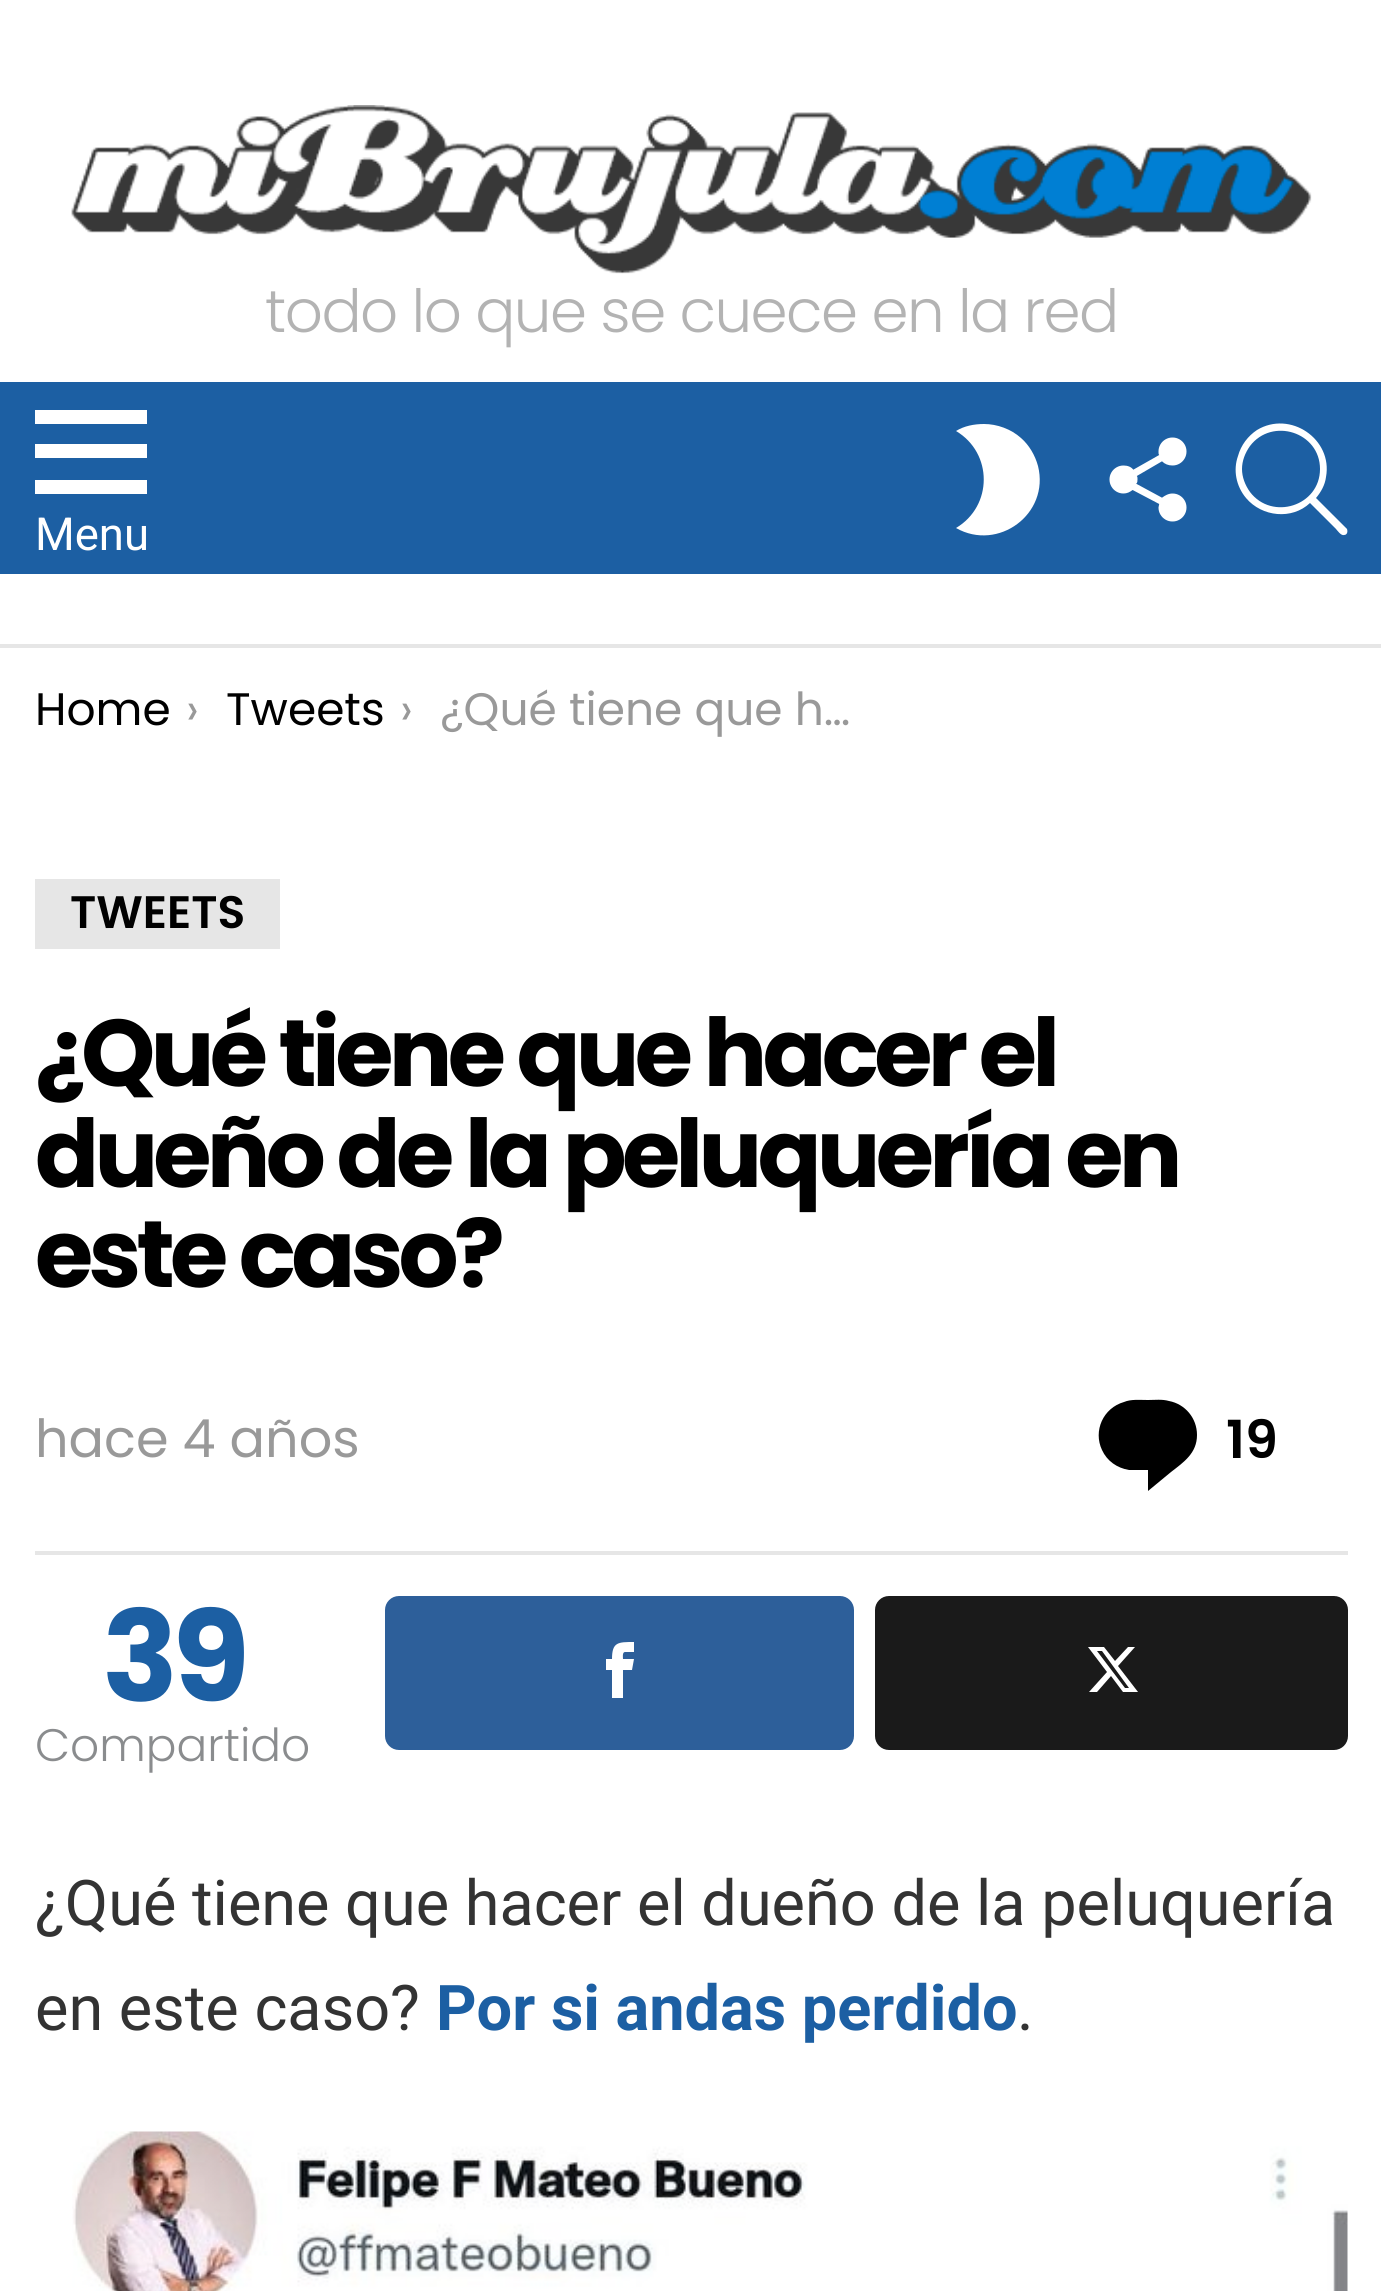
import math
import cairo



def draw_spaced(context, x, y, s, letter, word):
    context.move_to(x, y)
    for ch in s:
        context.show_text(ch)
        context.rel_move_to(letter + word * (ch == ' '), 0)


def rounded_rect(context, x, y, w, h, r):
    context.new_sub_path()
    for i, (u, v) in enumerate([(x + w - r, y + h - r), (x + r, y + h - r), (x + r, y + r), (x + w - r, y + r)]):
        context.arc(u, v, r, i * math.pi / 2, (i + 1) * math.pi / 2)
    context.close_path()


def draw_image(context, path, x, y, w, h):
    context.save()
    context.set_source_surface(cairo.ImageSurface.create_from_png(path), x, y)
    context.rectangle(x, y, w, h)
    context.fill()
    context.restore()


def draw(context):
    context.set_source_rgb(1, 1, 1)
    context.paint()
    draw_image(context, "images/1.png", 71, 105, 1241, 169)
    context.set_source_rgb(28 / 255, 95 / 255, 163 / 255)
    context.rectangle(0, 382, 1381, 192)
    context.fill()
    context.set_source_rgb(1, 1, 1)
    context.new_path()
    context.move_to(35, 410)
    context.line_to(147, 410)
    context.line_to(147, 424)
    context.line_to(35, 424)
    context.close_path()
    context.move_to(35, 444)
    context.line_to(147, 444)
    context.line_to(147, 458)
    context.line_to(35, 458)
    context.close_path()
    context.move_to(35, 480)
    context.line_to(147, 480)
    context.line_to(147, 494)
    context.line_to(35, 494)
    context.close_path()
    context.fill()
    context.new_path()
    context.move_to(984, 424)
    context.curve_to(974, 424, 964, 426, 956, 431)
    context.curve_to(993, 453, 993, 506, 956, 528)
    context.curve_to(998, 552, 1050, 514, 1038, 466)
    context.curve_to(1035, 455, 1029, 445, 1021, 438)
    context.curve_to(1011, 429, 997, 424, 984, 424)
    context.close_path()
    context.fill()
    draw_image(context, "images/2.png", 1109, 437, 78, 85)
    context.new_path()
    context.move_to(1347, 529)
    context.line_to(1316, 498)
    context.curve_to(1321, 492, 1325, 485, 1326, 477)
    context.curve_to(1333, 439, 1290, 410, 1257, 430)
    context.curve_to(1248, 436, 1241, 445, 1238, 456)
    context.curve_to(1233, 470, 1236, 486, 1246, 498)
    context.curve_to(1262, 517, 1292, 520, 1310, 503)
    context.line_to(1336, 529)
    context.curve_to(1337, 530, 1341, 536, 1344, 535)
    context.curve_to(1347, 535, 1348, 532, 1347, 529)
    context.close_path()
    context.move_to(1242, 469)
    context.curve_to(1242, 461, 1245, 453, 1250, 446)
    context.curve_to(1272, 417, 1320, 432, 1320, 469)
    context.curve_to(1320, 506, 1272, 521, 1250, 492)
    context.curve_to(1245, 485, 1242, 477, 1242, 469)
    context.close_path()
    context.fill()
    context.set_source_rgb(230 / 255, 230 / 255, 230 / 255)
    context.rectangle(0, 644, 1381, 4)
    context.fill()
    context.rectangle(35, 879, 245, 70)
    context.fill()
    context.set_source_rgb(0, 0, 0)
    context.new_path()
    context.move_to(1197, 1435)
    context.curve_to(1197, 1418, 1185, 1404, 1169, 1401)
    context.curve_to(1162, 1399, 1155, 1400, 1148, 1400)
    context.curve_to(1140, 1400, 1131, 1399, 1124, 1402)
    context.curve_to(1103, 1408, 1093, 1431, 1102, 1450)
    context.curve_to(1107, 1461, 1117, 1468, 1129, 1470)
    context.line_to(1148, 1470)
    context.line_to(1148, 1491)
    context.line_to(1171, 1472)
    context.curve_to(1184, 1462, 1197, 1453, 1197, 1435)
    context.close_path()
    context.fill()
    context.set_source_rgb(230 / 255, 230 / 255, 230 / 255)
    context.rectangle(35, 1551, 1313, 4)
    context.fill()
    context.set_source_rgb(45 / 255, 95 / 255, 154 / 255)
    rounded_rect(context, 385, 1596, 469, 154, 14)
    context.fill()
    context.set_source_rgb(1, 1, 1)
    context.new_path()
    context.move_to(625, 1652)
    context.line_to(634, 1652)
    context.line_to(634, 1642)
    context.curve_to(618, 1642, 612, 1642, 612, 1659)
    context.line_to(606, 1659)
    context.line_to(606, 1670)
    context.line_to(612, 1670)
    context.line_to(612, 1698)
    context.line_to(623, 1698)
    context.line_to(623, 1670)
    context.line_to(632, 1670)
    context.line_to(634, 1659)
    context.line_to(623, 1659)
    context.curve_to(623, 1658, 622, 1652, 625, 1652)
    context.close_path()
    context.fill()
    context.set_source_rgb(26 / 255, 26 / 255, 26 / 255)
    rounded_rect(context, 875, 1596, 473, 154, 14)
    context.fill()
    context.set_source_rgb(1, 1, 1)
    context.new_path()
    context.move_to(1128, 1647)
    context.line_to(1135, 1647)
    context.line_to(1118, 1666)
    context.line_to(1138, 1692)
    context.line_to(1123, 1692)
    context.line_to(1111, 1676)
    context.line_to(1097, 1692)
    context.line_to(1089, 1692)
    context.line_to(1107, 1672)
    context.line_to(1088, 1647)
    context.line_to(1104, 1647)
    context.line_to(1115, 1661)
    context.close_path()
    context.move_to(1125, 1688)
    context.line_to(1129, 1688)
    context.line_to(1102, 1651)
    context.line_to(1097, 1651)
    context.close_path()
    context.fill()
    draw_image(context, "images/3.png", 72, 2131, 1276, 160)
    context.select_font_face("Poppins Light")
    context.set_font_size(59.5)
    context.set_source_rgb(179 / 255, 179 / 255, 179 / 255)
    draw_spaced(context, 265, 332, "todo lo que se cuece en la red", -1.5, 0)
    context.select_font_face("Roboto")
    context.set_font_size(45.5)
    context.set_source_rgb(1, 1, 1)
    context.move_to(35, 550)
    context.show_text("Menu")
    context.select_font_face("Poppins")
    context.set_source_rgb(0, 0, 0)
    context.move_to(35, 725)
    context.show_text("Home")
    context.set_source_rgb(153 / 255, 153 / 255, 153 / 255)
    context.move_to(186, 725)
    context.show_text("›")
    context.set_source_rgb(0, 0, 0)
    context.move_to(226, 725)
    context.show_text("Tweets")
    context.set_source_rgb(153 / 255, 153 / 255, 153 / 255)
    context.move_to(400, 725)
    context.show_text("›")
    context.move_to(440, 725)
    context.show_text("¿Qué tiene que h…")
    context.select_font_face("Poppins SemiBold")
    context.set_source_rgb(0, 0, 0)
    context.move_to(70, 928)
    context.show_text("TWEETS")
    context.select_font_face("Poppins", cairo.FontSlant.NORMAL, cairo.FontWeight.BOLD)
    context.set_font_size(94.5)
    draw_spaced(context, 35, 1086, "¿Qué tiene que hacer el", -4.75, 0)
    draw_spaced(context, 35, 1187, "dueño de la peluquería en", -4.75, 0)
    draw_spaced(context, 35, 1287, "este caso?", -4.75, 0)
    context.select_font_face("Poppins")
    context.set_font_size(52.5)
    context.set_source_rgb(153 / 255, 153 / 255, 153 / 255)
    context.move_to(35, 1457)
    context.show_text("hace 4 años")
    context.select_font_face("Poppins SemiBold")
    context.set_source_rgb(0, 0, 0)
    context.move_to(1226, 1458)
    context.show_text("19")
    context.select_font_face("Poppins", cairo.FontSlant.NORMAL, cairo.FontWeight.BOLD)
    context.set_font_size(126)
    context.set_source_rgb(28 / 255, 95 / 255, 163 / 255)
    draw_spaced(context, 102, 1701, "39", -6, 0)
    context.select_font_face("Poppins Light")
    context.set_font_size(45.5)
    context.set_source_rgb(138 / 255, 140 / 255, 142 / 255)
    context.move_to(35, 1761)
    context.show_text("Compartido")
    context.select_font_face("Roboto")
    context.set_font_size(63)
    context.set_source_rgb(51 / 255, 51 / 255, 51 / 255)
    context.move_to(35, 1925)
    context.show_text("¿Qué tiene que hacer el dueño de la peluquería")
    context.move_to(35, 2030)
    context.show_text("en este caso?")
    context.select_font_face("Roboto", cairo.FontSlant.NORMAL, cairo.FontWeight.BOLD)
    context.set_source_rgb(28 / 255, 95 / 255, 163 / 255)
    context.move_to(436, 2030)
    context.show_text("Por si andas perdido")
    context.select_font_face("Roboto")
    context.set_source_rgb(51 / 255, 51 / 255, 51 / 255)
    context.move_to(1017, 2030)
    context.show_text(".")


surface = cairo.ImageSurface(cairo.Format.RGB24, 1381, 2291)
context = cairo.Context(surface)
options = cairo.FontOptions()
options.set_hint_metrics(cairo.HintMetrics.OFF)
options.set_hint_style(cairo.HintStyle.NONE)
context.set_font_options(options)
context.set_miter_limit(4)
draw(context)
surface.write_to_png("out.png")
